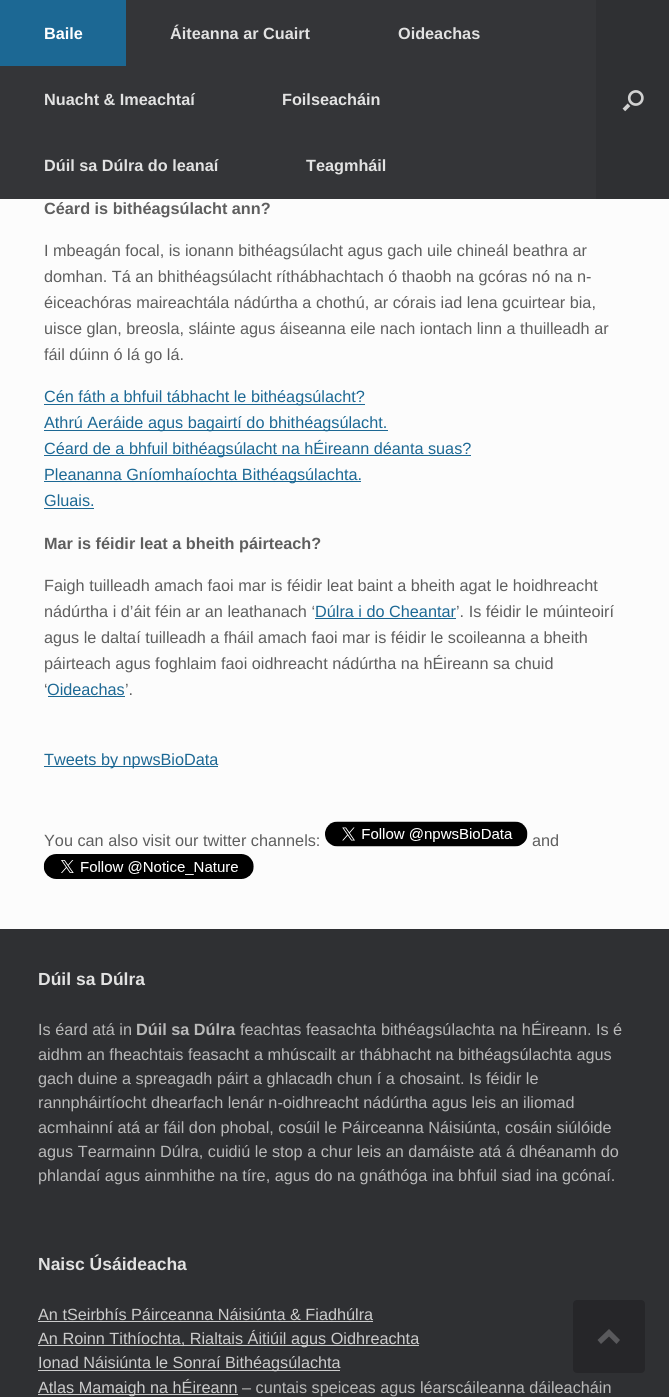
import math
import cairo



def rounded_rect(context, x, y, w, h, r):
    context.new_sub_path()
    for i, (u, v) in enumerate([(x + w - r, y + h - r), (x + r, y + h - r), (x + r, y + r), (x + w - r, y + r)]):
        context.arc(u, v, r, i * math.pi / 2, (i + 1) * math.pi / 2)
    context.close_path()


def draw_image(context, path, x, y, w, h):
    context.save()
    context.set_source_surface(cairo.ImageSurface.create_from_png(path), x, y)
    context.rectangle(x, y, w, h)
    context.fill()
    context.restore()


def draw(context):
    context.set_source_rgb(47 / 255, 48 / 255, 51 / 255)
    context.paint()
    context.set_source_rgb(52 / 255, 53 / 255, 56 / 255)
    context.rectangle(0, 0, 596, 199)
    context.fill()
    context.set_source_rgb(28 / 255, 104 / 255, 148 / 255)
    context.rectangle(0, 0, 126, 66)
    context.fill()
    draw_image(context, "images/1.png", 622, 90, 22, 22)
    context.set_source_rgb(252 / 255, 252 / 255, 252 / 255)
    context.rectangle(0, 199, 669, 730)
    context.fill()
    context.set_source_rgb(28 / 255, 104 / 255, 148 / 255)
    context.rectangle(44, 404, 321, 1)
    context.fill()
    context.rectangle(44, 430, 344, 1)
    context.fill()
    context.rectangle(44, 455, 427, 1)
    context.fill()
    context.rectangle(44, 481, 317, 1)
    context.fill()
    context.rectangle(44, 508, 50, 1)
    context.fill()
    context.rectangle(315, 618, 141, 1)
    context.fill()
    context.rectangle(48, 696, 77, 1)
    context.fill()
    context.rectangle(44, 766, 174, 1)
    context.fill()
    draw_image(context, "images/2.png", 325, 821, 203, 26)
    draw_image(context, "images/3.png", 43, 854, 211, 25)
    context.set_source_rgb(204 / 255, 204 / 255, 204 / 255)
    context.rectangle(38, 1321, 335, 1)
    context.fill()
    context.rectangle(38, 1345, 381, 1)
    context.fill()
    context.rectangle(38, 1370, 302, 1)
    context.fill()
    context.rectangle(38, 1394, 200, 1)
    context.fill()
    context.set_source_rgb(38 / 255, 38 / 255, 41 / 255)
    rounded_rect(context, 573, 1300, 72, 73, 4)
    context.fill()
    context.set_source_rgb(89 / 255, 89 / 255, 92 / 255)
    context.new_path()
    context.move_to(620, 1340)
    context.line_to(609, 1329)
    context.line_to(597.5, 1340)
    context.line_to(601, 1344)
    context.line_to(609, 1336.5)
    context.line_to(616.5, 1344)
    context.close_path()
    context.fill()
    context.select_font_face("Liberation Sans", cairo.FontSlant.NORMAL, cairo.FontWeight.BOLD)
    context.set_font_size(16.25)
    context.set_source_rgb(1, 1, 1)
    context.move_to(44, 39)
    context.show_text("Baile")
    context.set_source_rgb(226 / 255, 226 / 255, 226 / 255)
    context.move_to(170, 39)
    context.show_text("Áiteanna ar Cuairt")
    context.move_to(398, 39)
    context.show_text("Oideachas")
    context.move_to(44, 105)
    context.show_text("Nuacht & Imeachtaí")
    context.move_to(282, 105)
    context.show_text("Foilseacháin")
    context.move_to(44, 171)
    context.show_text("Dúil sa Dúlra do leanaí")
    context.move_to(306, 171)
    context.show_text("Teagmháil")
    context.set_source_rgb(94 / 255, 94 / 255, 94 / 255)
    context.move_to(44, 214)
    context.show_text("Céard is bithéagsúlacht ann?")
    context.select_font_face("Liberation Sans")
    context.move_to(44, 256)
    context.show_text("I mbeagán focal, is ionann bithéagsúlacht agus gach uile chineál beathra ar")
    context.move_to(44, 282)
    context.show_text("domhan. Tá an bhithéagsúlacht ríthábhachtach ó thaobh na gcóras nó na n-")
    context.move_to(44, 308)
    context.show_text("éiceachóras maireachtála nádúrtha a chothú, ar córais iad lena gcuirtear bia,")
    context.move_to(44, 334)
    context.show_text("uisce glan, breosla, sláinte agus áiseanna eile nach iontach linn a thuilleadh ar")
    context.move_to(44, 360)
    context.show_text("fáil dúinn ó lá go lá.")
    context.set_source_rgb(28 / 255, 104 / 255, 148 / 255)
    context.move_to(44, 402)
    context.show_text("Cén fáth a bhfuil tábhacht le bithéagsúlacht?")
    context.move_to(44, 428)
    context.show_text("Athrú Aeráide agus bagairtí do bhithéagsúlacht.")
    context.move_to(44, 454)
    context.show_text("Céard de a bhfuil bithéagsúlacht na hÉireann déanta suas?")
    context.move_to(44, 480)
    context.show_text("Pleananna Gníomhaíochta Bithéagsúlachta.")
    context.move_to(44, 506)
    context.show_text("Gluais.")
    context.select_font_face("Liberation Sans", cairo.FontSlant.NORMAL, cairo.FontWeight.BOLD)
    context.set_source_rgb(94 / 255, 94 / 255, 94 / 255)
    context.move_to(44, 549)
    context.show_text("Mar is féidir leat a bheith páirteach?")
    context.select_font_face("Liberation Sans")
    context.move_to(44, 591)
    context.show_text("Faigh tuilleadh amach faoi mar is féidir leat baint a bheith agat le hoidhreacht")
    context.move_to(44, 617)
    context.show_text("nádúrtha i d’áit féin ar an leathanach ‘")
    context.set_source_rgb(28 / 255, 104 / 255, 148 / 255)
    context.move_to(315, 617)
    context.show_text("Dúlra i do Cheantar")
    context.set_source_rgb(94 / 255, 94 / 255, 94 / 255)
    context.move_to(456, 617)
    context.show_text("’. Is féidir le múinteoirí")
    context.move_to(44, 643)
    context.show_text("agus le daltaí tuilleadh a fháil amach faoi mar is féidir le scoileanna a bheith")
    context.move_to(44, 669)
    context.show_text("páirteach agus foghlaim faoi oidhreacht nádúrtha na hÉireann sa chuid")
    context.move_to(44, 695)
    context.show_text("‘")
    context.set_source_rgb(28 / 255, 104 / 255, 148 / 255)
    context.move_to(47, 695)
    context.show_text("Oideachas")
    context.set_source_rgb(94 / 255, 94 / 255, 94 / 255)
    context.move_to(125, 695)
    context.show_text("’.")
    context.set_source_rgb(28 / 255, 104 / 255, 148 / 255)
    context.move_to(44, 765)
    context.show_text("Tweets by npwsBioData")
    context.set_source_rgb(94 / 255, 94 / 255, 94 / 255)
    context.move_to(44, 846)
    context.show_text("You can also visit our twitter channels:")
    context.move_to(532, 846)
    context.show_text("and")
    context.select_font_face("Liberation Sans", cairo.FontSlant.NORMAL, cairo.FontWeight.BOLD)
    context.set_font_size(17.5)
    context.set_source_rgb(226 / 255, 226 / 255, 226 / 255)
    context.move_to(38, 985)
    context.show_text("Dúil sa Dúlra")
    context.select_font_face("Liberation Sans")
    context.set_font_size(16.25)
    context.set_source_rgb(185 / 255, 185 / 255, 185 / 255)
    context.move_to(38, 1035)
    context.show_text("Is éard atá in")
    context.select_font_face("Liberation Sans", cairo.FontSlant.NORMAL, cairo.FontWeight.BOLD)
    context.move_to(136, 1035)
    context.show_text("Dúil sa Dúlra")
    context.select_font_face("Liberation Sans")
    context.move_to(240, 1035)
    context.show_text("feachtas feasachta bithéagsúlachta na hÉireann. Is é")
    context.move_to(38, 1060)
    context.show_text("aidhm an fheachtais feasacht a mhúscailt ar thábhacht na bithéagsúlachta agus")
    context.move_to(38, 1084)
    context.show_text("gach duine a spreagadh páirt a ghlacadh chun í a chosaint. Is féidir le")
    context.move_to(38, 1108)
    context.show_text("rannpháirtíocht dhearfach lenár n-oidhreacht nádúrtha agus leis an iliomad")
    context.move_to(38, 1133)
    context.show_text("acmhainní atá ar fáil don phobal, cosúil le Páirceanna Náisiúnta, cosáin siúlóide")
    context.move_to(38, 1157)
    context.show_text("agus Tearmainn Dúlra, cuidiú le stop a chur leis an damáiste atá á dhéanamh do")
    context.move_to(38, 1181)
    context.show_text("phlandaí agus ainmhithe na tíre, agus do na gnáthóga ina bhfuil siad ina gcónaí.")
    context.select_font_face("Liberation Sans", cairo.FontSlant.NORMAL, cairo.FontWeight.BOLD)
    context.set_font_size(17.5)
    context.set_source_rgb(226 / 255, 226 / 255, 226 / 255)
    context.move_to(38, 1270)
    context.show_text("Naisc Úsáideacha")
    context.select_font_face("Liberation Sans")
    context.set_font_size(16.25)
    context.set_source_rgb(204 / 255, 204 / 255, 204 / 255)
    context.move_to(38, 1320)
    context.show_text("An tSeirbhís Páirceanna Náisiúnta & Fiadhúlra")
    context.move_to(38, 1344)
    context.show_text("An Roinn Tithíochta, Rialtais Áitiúil agus Oidhreachta")
    context.move_to(38, 1368)
    context.show_text("Ionad Náisiúnta le Sonraí Bithéagsúlachta")
    context.move_to(38, 1393)
    context.show_text("Atlas Mamaigh na hÉireann")
    context.set_source_rgb(185 / 255, 185 / 255, 185 / 255)
    context.move_to(242, 1393)
    context.show_text("– cuntais speiceas agus léarscáileanna dáileacháin")


surface = cairo.ImageSurface(cairo.Format.RGB24, 669, 1397)
context = cairo.Context(surface)
options = cairo.FontOptions()
options.set_hint_metrics(cairo.HintMetrics.OFF)
options.set_hint_style(cairo.HintStyle.NONE)
context.set_font_options(options)
context.set_miter_limit(4)
draw(context)
surface.write_to_png("out.png")
